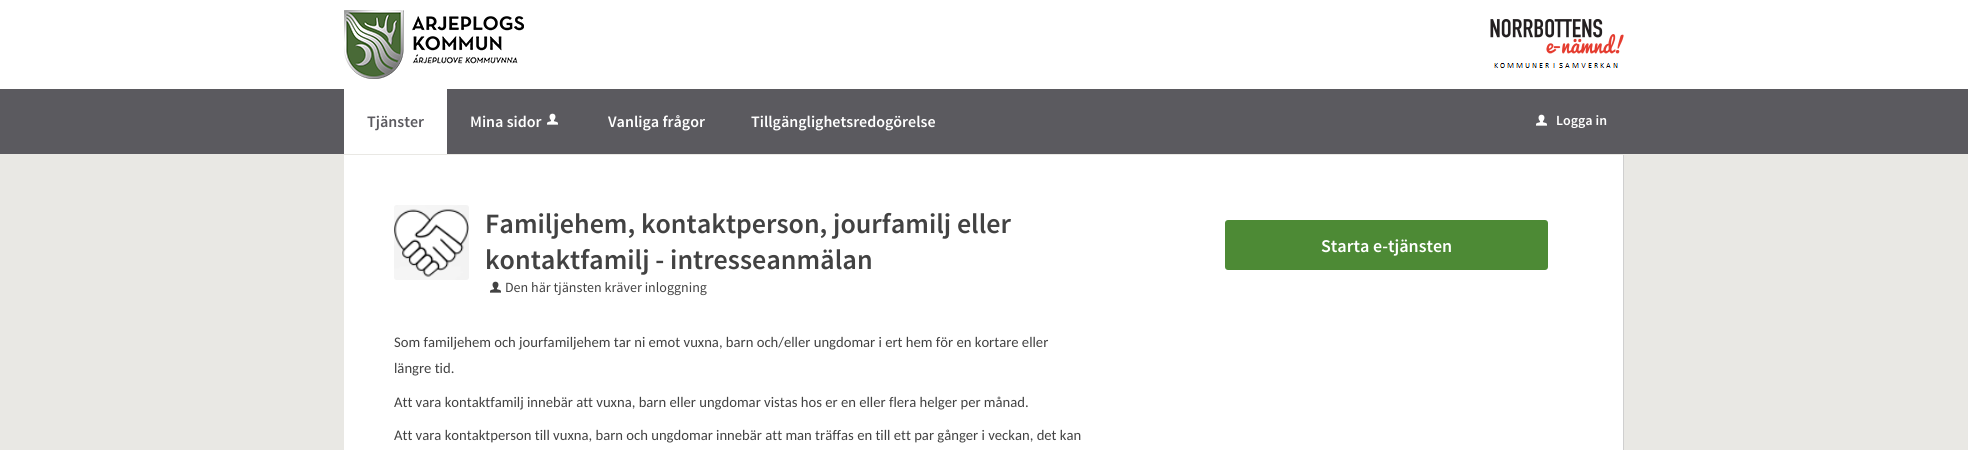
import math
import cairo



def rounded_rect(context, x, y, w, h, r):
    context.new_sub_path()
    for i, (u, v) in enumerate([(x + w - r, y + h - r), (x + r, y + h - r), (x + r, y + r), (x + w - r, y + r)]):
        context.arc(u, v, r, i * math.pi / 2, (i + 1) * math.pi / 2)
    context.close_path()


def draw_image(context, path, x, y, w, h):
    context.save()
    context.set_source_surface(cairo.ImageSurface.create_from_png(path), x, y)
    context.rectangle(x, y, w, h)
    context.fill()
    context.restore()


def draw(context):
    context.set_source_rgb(233 / 255, 232 / 255, 228 / 255)
    context.paint()
    context.set_source_rgb(1, 1, 1)
    context.rectangle(0, 0, 1968, 89)
    context.fill()
    draw_image(context, "images/1.png", 344, 10, 180, 69)
    draw_image(context, "images/2.png", 1490, 19, 134, 49)
    context.set_source_rgb(91 / 255, 90 / 255, 95 / 255)
    context.rectangle(0, 89, 1968, 65)
    context.fill()
    context.set_source_rgb(1, 1, 1)
    context.rectangle(344, 89, 103, 65)
    context.fill()
    draw_image(context, "images/3.png", 547, 113, 11, 12)
    draw_image(context, "images/3.png", 1536, 114, 11, 12)
    context.rectangle(344, 155, 1279, 295)
    context.fill()
    context.set_source_rgb(207 / 255, 207 / 255, 207 / 255)
    context.rectangle(1623, 155, 1, 295)
    context.fill()
    draw_image(context, "images/4.png", 394, 205, 75, 75)
    draw_image(context, "images/5.png", 490, 281, 11, 12)
    context.set_source_rgb(77 / 255, 138 / 255, 53 / 255)
    rounded_rect(context, 1225, 220, 323, 50, 3)
    context.fill()
    context.select_font_face("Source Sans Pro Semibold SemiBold")
    context.set_font_size(16)
    context.set_source_rgb(91 / 255, 90 / 255, 95 / 255)
    context.move_to(367, 127)
    context.show_text("Tjänster")
    context.set_source_rgb(1, 1, 1)
    context.move_to(470, 127)
    context.show_text("Mina sidor")
    context.move_to(608, 127)
    context.show_text("Vanliga frågor")
    context.move_to(751, 127)
    context.show_text("Tillgänglighetsredogörelse")
    context.set_font_size(14)
    context.move_to(1556, 125)
    context.show_text("Logga in")
    context.set_font_size(28)
    context.set_source_rgb(66 / 255, 66 / 255, 66 / 255)
    context.move_to(485, 233)
    context.show_text("Familjehem, kontaktperson, jourfamilj eller")
    context.move_to(485, 269)
    context.show_text("kontaktfamilj - intresseanmälan")
    context.select_font_face("Source Sans Pro")
    context.set_font_size(14)
    context.move_to(505, 292)
    context.show_text("Den här tjänsten kräver inloggning")
    context.select_font_face("Carlito")
    context.set_font_size(14.65)
    context.move_to(394, 347)
    context.show_text("Som familjehem och jourfamiljehem tar ni emot vuxna, barn och/eller ungdomar i ert hem för en kortare eller")
    context.move_to(394, 373)
    context.show_text("längre tid.")
    context.move_to(394, 407)
    context.show_text("Att vara kontaktfamilj innebär att vuxna, barn eller ungdomar vistas hos er en eller flera helger per månad.")
    context.move_to(394, 440)
    context.show_text("Att vara kontaktperson till vuxna, barn och ungdomar innebär att man träffas en till ett par gånger i veckan, det kan")
    context.select_font_face("Source Sans Pro Semibold SemiBold")
    context.set_font_size(18)
    context.set_source_rgb(1, 1, 1)
    context.move_to(1321, 252)
    context.show_text("Starta e-tjänsten")


surface = cairo.ImageSurface(cairo.Format.RGB24, 1968, 450)
context = cairo.Context(surface)
options = cairo.FontOptions()
options.set_hint_metrics(cairo.HintMetrics.OFF)
options.set_hint_style(cairo.HintStyle.NONE)
context.set_font_options(options)
context.set_miter_limit(4)
draw(context)
surface.write_to_png("out.png")
